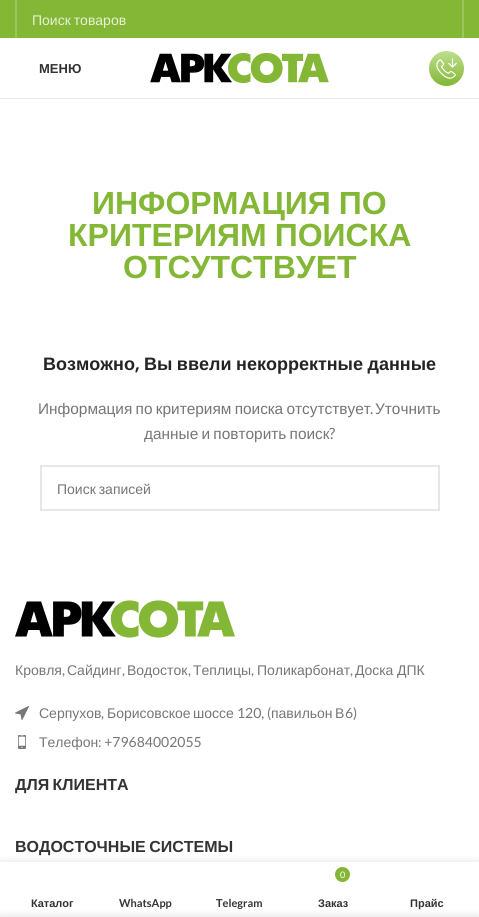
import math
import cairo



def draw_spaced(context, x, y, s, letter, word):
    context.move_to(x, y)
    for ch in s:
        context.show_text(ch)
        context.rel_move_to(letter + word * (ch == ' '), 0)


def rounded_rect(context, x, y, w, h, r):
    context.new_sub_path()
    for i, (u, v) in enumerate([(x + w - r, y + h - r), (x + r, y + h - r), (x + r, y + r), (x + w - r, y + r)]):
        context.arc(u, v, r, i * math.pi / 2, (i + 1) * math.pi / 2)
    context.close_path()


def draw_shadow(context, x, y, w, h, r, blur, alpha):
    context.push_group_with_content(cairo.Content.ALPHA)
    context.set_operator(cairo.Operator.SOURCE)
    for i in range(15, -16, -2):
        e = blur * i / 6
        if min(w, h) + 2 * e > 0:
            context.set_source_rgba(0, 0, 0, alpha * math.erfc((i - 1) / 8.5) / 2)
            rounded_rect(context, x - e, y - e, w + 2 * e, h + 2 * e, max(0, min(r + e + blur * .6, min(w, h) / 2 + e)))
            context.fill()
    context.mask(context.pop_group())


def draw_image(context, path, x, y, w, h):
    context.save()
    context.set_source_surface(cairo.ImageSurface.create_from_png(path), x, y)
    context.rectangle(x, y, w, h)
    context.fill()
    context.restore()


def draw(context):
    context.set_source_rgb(1, 1, 1)
    context.paint()
    context.set_source_rgb(131 / 255, 183 / 255, 53 / 255)
    context.rectangle(0, 0, 479, 38)
    context.fill()
    context.rectangle(16, -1, 447, 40)
    context.set_source_rgba(1, 1, 1, 0.2)
    context.stroke()
    context.set_source_rgb(232 / 255, 232 / 255, 232 / 255)
    context.rectangle(0, 98, 479, 1)
    context.fill()
    draw_image(context, "images/1.png", 150, 52, 179, 32)
    draw_image(context, "images/2.png", 429, 51, 35, 35)
    context.rectangle(41, 466, 398, 44)
    context.set_source_rgb(230 / 255, 230 / 255, 230 / 255)
    context.stroke()
    draw_image(context, "images/3.png", 15, 600, 220, 38)
    draw_image(context, "images/4.png", 15, 706, 14, 14)
    draw_image(context, "images/5.png", 18, 735, 8, 14)
    context.set_source_rgb(0, 0, 0)
    draw_shadow(context, 0, 862, 479, 55, 0, 4.5, 0.12)
    context.set_source_rgb(1, 1, 1)
    context.rectangle(0, 862, 479, 55)
    context.fill()
    context.set_source_rgb(131 / 255, 183 / 255, 53 / 255)
    context.arc(342.5, 874.5, 7.5, 0, 2 * math.pi)
    context.fill()
    context.set_source_rgb(0, 0, 0)
    draw_shadow(context, 0, 917, 479, 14, 0, 4.5, 0.14)
    context.select_font_face("Liberation Sans")
    context.set_font_size(14)
    context.set_source_rgb(230 / 255, 241 / 255, 215 / 255)
    draw_spaced(context, 32, 25, "Поиск товаров", 0, -1)
    context.select_font_face("Liberation Sans", cairo.FontSlant.NORMAL, cairo.FontWeight.BOLD)
    context.set_font_size(13)
    context.set_source_rgb(51 / 255, 51 / 255, 51 / 255)
    context.move_to(39, 73)
    context.show_text("МЕНЮ")
    context.set_font_size(32)
    context.set_source_rgb(131 / 255, 183 / 255, 53 / 255)
    draw_spaced(context, 92, 214, "ИНФОРМАЦИЯ ПО", 0, -1)
    draw_spaced(context, 68, 246, "КРИТЕРИЯМ ПОИСКА", 0, -1)
    context.move_to(123, 278)
    context.show_text("ОТСУТСТВУЕТ")
    context.set_font_size(18)
    context.set_source_rgb(36 / 255, 36 / 255, 36 / 255)
    context.move_to(43, 370)
    context.show_text("Возможно")
    context.select_font_face("Poppins SemiBold")
    context.move_to(135, 370)
    context.show_text(",")
    context.select_font_face("Liberation Sans", cairo.FontSlant.NORMAL, cairo.FontWeight.BOLD)
    draw_spaced(context, 144, 370, "Вы ввели некорректные данные", 0, -0.5)
    context.select_font_face("Liberation Sans")
    context.set_font_size(15.4)
    context.set_source_rgb(118 / 255, 118 / 255, 118 / 255)
    draw_spaced(context, 38, 414, "Информация по критериям поиска отсутствует", 0, -1)
    context.select_font_face("Lato")
    context.move_to(370, 414)
    context.show_text(".")
    context.select_font_face("Liberation Sans")
    context.move_to(375, 414)
    context.show_text("Уточнить")
    draw_spaced(context, 144, 439, "данные и повторить поиск", 0, -1)
    context.select_font_face("Lato")
    context.move_to(329, 439)
    context.show_text("?")
    context.select_font_face("Liberation Sans")
    context.set_font_size(14)
    draw_spaced(context, 57, 494, "Поиск записей", 0, -1)
    context.move_to(15, 675)
    context.show_text("Кровля")
    context.select_font_face("Lato")
    context.move_to(62, 675)
    context.show_text(",")
    context.select_font_face("Liberation Sans")
    context.move_to(67, 675)
    context.show_text("Сайдинг")
    context.select_font_face("Lato")
    context.move_to(122, 675)
    context.show_text(",")
    context.select_font_face("Liberation Sans")
    context.move_to(127, 675)
    context.show_text("Водосток")
    context.select_font_face("Lato")
    context.move_to(188, 675)
    context.show_text(",")
    context.select_font_face("Liberation Sans")
    context.move_to(193, 675)
    context.show_text("Теплицы")
    context.select_font_face("Lato")
    context.move_to(251, 675)
    context.show_text(",")
    context.select_font_face("Liberation Sans")
    context.move_to(257, 675)
    context.show_text("Поликарбонат")
    context.select_font_face("Lato")
    context.move_to(350, 675)
    context.show_text(",")
    context.select_font_face("Liberation Sans")
    context.move_to(355, 675)
    context.show_text("Доска ДПК")
    context.move_to(39, 718)
    context.show_text("Серпухов")
    context.select_font_face("Lato")
    context.move_to(101, 718)
    context.show_text(",")
    context.select_font_face("Liberation Sans")
    context.move_to(107, 718)
    context.show_text("Борисовское")
    context.move_to(193, 718)
    context.show_text("шоссе")
    context.select_font_face("Lato")
    context.move_to(237, 718)
    context.show_text("120, (")
    context.select_font_face("Liberation Sans")
    context.move_to(271, 718)
    context.show_text("павильон")
    context.move_to(335, 718)
    context.show_text("В")
    context.select_font_face("Lato")
    context.move_to(345, 718)
    context.show_text("6)")
    context.select_font_face("Liberation Sans")
    context.move_to(39, 747)
    context.show_text("Телефон")
    context.select_font_face("Lato")
    context.move_to(98, 747)
    context.show_text(": +79684002055")
    context.select_font_face("Liberation Sans", cairo.FontSlant.NORMAL, cairo.FontWeight.BOLD)
    context.set_font_size(16)
    context.set_source_rgb(51 / 255, 51 / 255, 51 / 255)
    draw_spaced(context, 15, 790, "ДЛЯ КЛИЕНТА", 0, -1)
    draw_spaced(context, 15, 852, "ВОДОСТОЧНЫЕ СИСТЕМЫ", 0, -1)
    context.set_font_size(11)
    context.move_to(31, 907)
    context.show_text("Каталог")
    context.select_font_face("Lato", cairo.FontSlant.NORMAL, cairo.FontWeight.BOLD)
    context.move_to(119, 907)
    context.show_text("WhatsApp")
    context.move_to(216, 907)
    context.show_text("Telegram")
    context.select_font_face("Lato")
    context.set_font_size(9)
    context.set_source_rgb(1, 1, 1)
    context.move_to(340, 878)
    context.show_text("0")
    context.select_font_face("Liberation Sans", cairo.FontSlant.NORMAL, cairo.FontWeight.BOLD)
    context.set_font_size(11)
    context.set_source_rgb(51 / 255, 51 / 255, 51 / 255)
    context.move_to(318, 907)
    context.show_text("Заказ")
    context.move_to(410, 907)
    context.show_text("Прайс")


surface = cairo.ImageSurface(cairo.Format.RGB24, 479, 917)
context = cairo.Context(surface)
options = cairo.FontOptions()
options.set_hint_metrics(cairo.HintMetrics.OFF)
options.set_hint_style(cairo.HintStyle.NONE)
context.set_font_options(options)
context.set_miter_limit(4)
draw(context)
surface.write_to_png("out.png")
